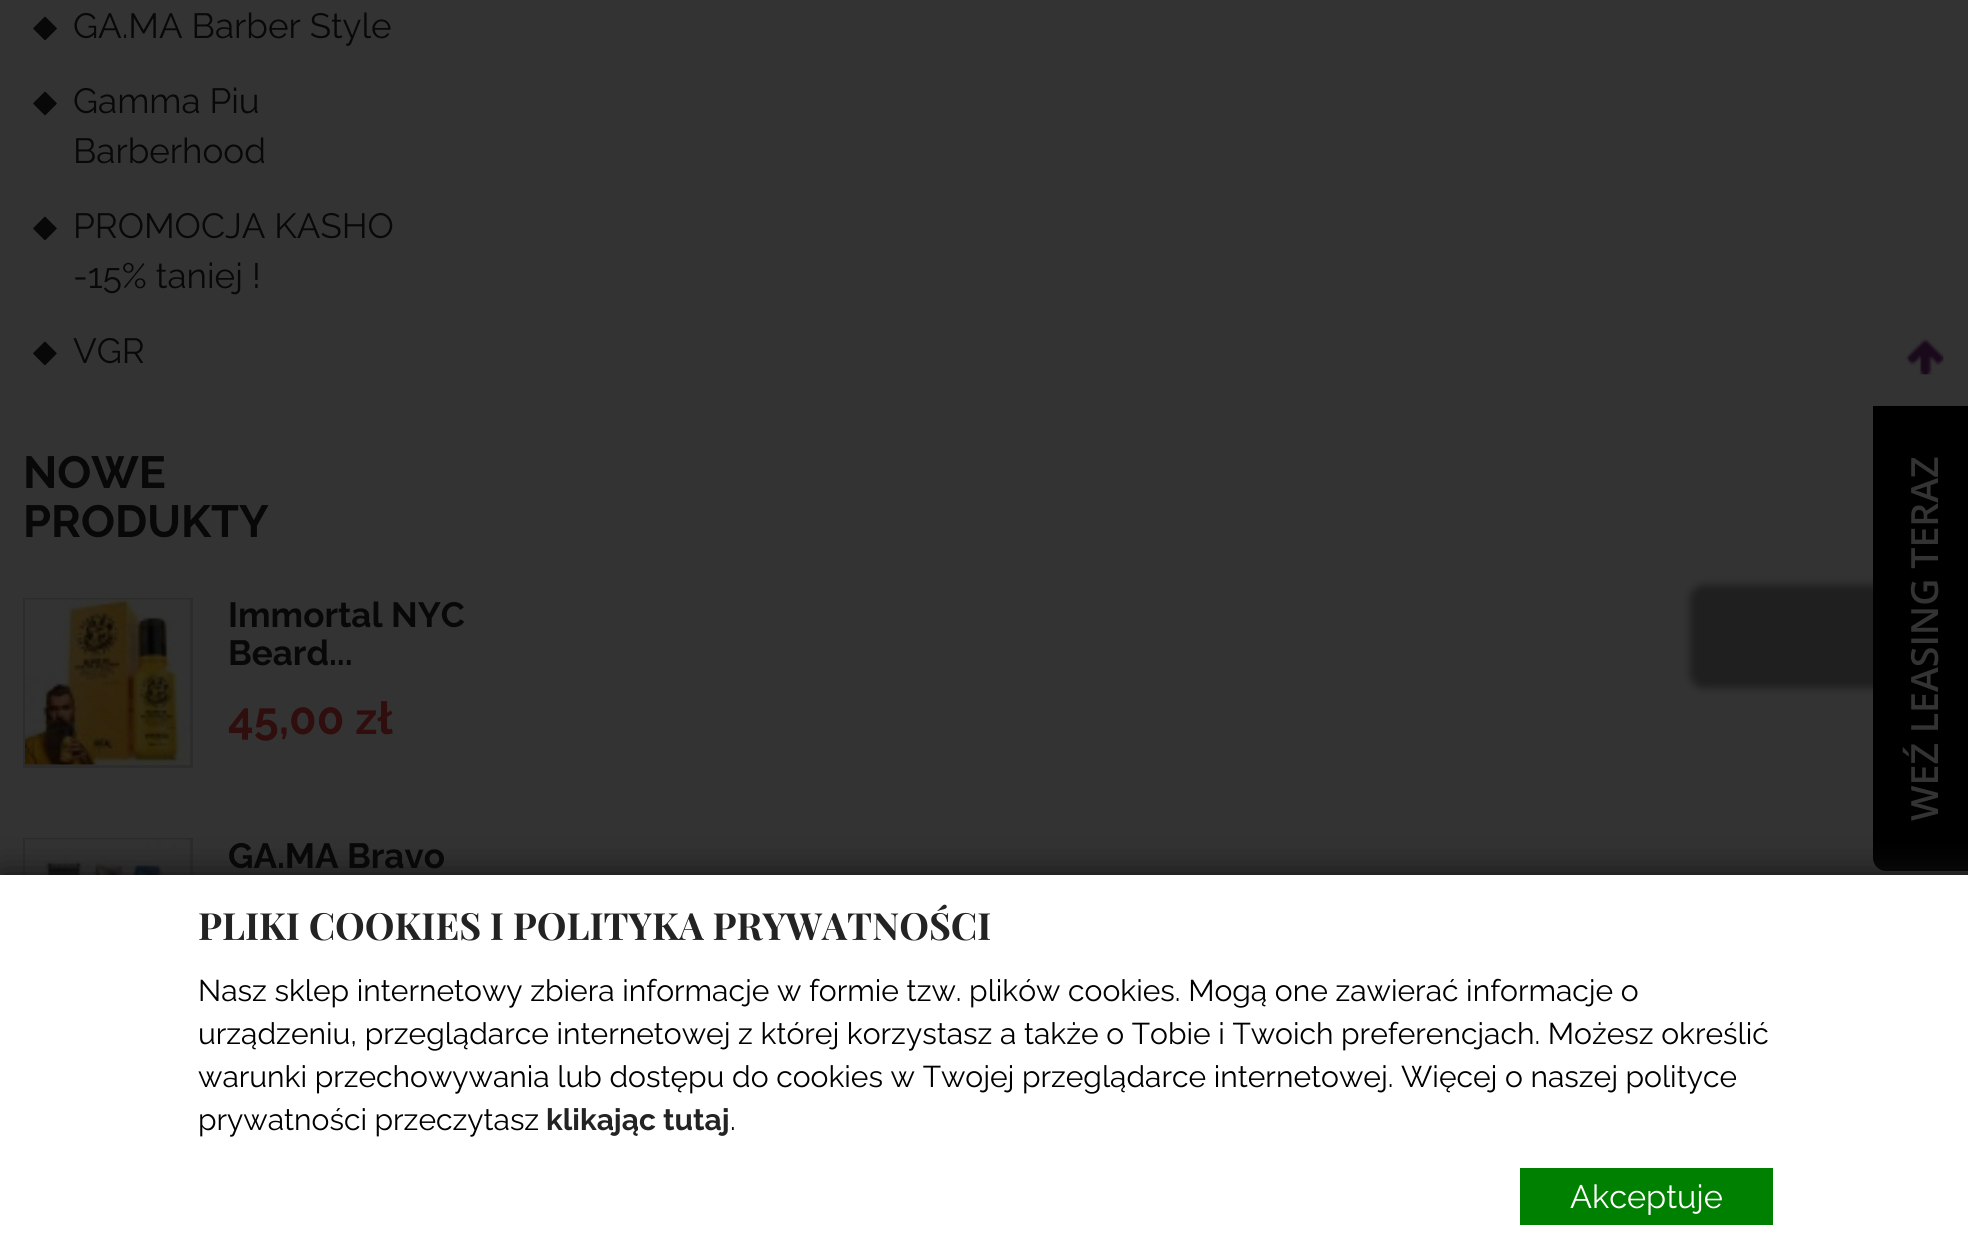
import math
import cairo



def rounded_rect(context, x, y, w, h, r):
    context.new_sub_path()
    for i, (u, v) in enumerate([(x + w - r, y + h - r), (x + r, y + h - r), (x + r, y + r), (x + w - r, y + r)]):
        context.arc(u, v, r, i * math.pi / 2, (i + 1) * math.pi / 2)
    context.close_path()


def draw_shadow(context, x, y, w, h, r, blur, alpha):
    context.push_group_with_content(cairo.Content.ALPHA)
    context.set_operator(cairo.Operator.SOURCE)
    for i in range(15, -16, -2):
        e = blur * i / 6
        if min(w, h) + 2 * e > 0:
            context.set_source_rgba(0, 0, 0, alpha * math.erfc((i - 1) / 8.5) / 2)
            rounded_rect(context, x - e, y - e, w + 2 * e, h + 2 * e, max(0, min(r + e + blur * .6, min(w, h) / 2 + e)))
            context.fill()
    context.mask(context.pop_group())


def draw_image(context, path, x, y, w, h):
    context.save()
    context.set_source_surface(cairo.ImageSurface.create_from_png(path), x, y)
    context.rectangle(x, y, w, h)
    context.fill()
    context.restore()


def draw(context):
    context.set_source_rgb(51 / 255, 51 / 255, 51 / 255)
    context.paint()
    draw_image(context, "images/1.png", 33, 16, 24, 25)
    draw_image(context, "images/2.png", 33, 91, 24, 25)
    draw_image(context, "images/3.png", 33, 216, 24, 25)
    draw_image(context, "images/4.png", 33, 341, 24, 25)
    context.rectangle(24.5, 599.5, 167, 167)
    context.set_source_rgb(44 / 255, 44 / 255, 44 / 255)
    context.set_line_width(3)
    context.stroke()
    draw_image(context, "images/5.png", 25, 599, 165, 166)
    context.rectangle(24.5, 839.5, 167, 169)
    context.stroke()
    draw_image(context, "images/6.png", 25, 839, 165, 36)
    context.set_source_rgb(0, 0, 0)
    draw_shadow(context, 1690, 585, 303, 103, 13, 4, 0.4)
    context.set_source_rgb(0, 0, 0)
    context.new_path()
    context.move_to(1873, 858)
    context.line_to(1873, 406)
    context.line_to(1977, 406)
    context.line_to(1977, 871)
    context.line_to(1886, 871)
    context.curve_to(1879, 871, 1873, 865, 1873, 858)
    context.close_path()
    context.fill()
    draw_image(context, "images/7.png", 1905, 339, 39, 36)
    context.set_source_rgb(18 / 255, 18 / 255, 18 / 255)
    draw_shadow(context, 0, 875, 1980, 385, 0, 17.5, 1)
    context.set_source_rgb(1, 1, 1)
    context.rectangle(0, 875, 1968, 374)
    context.fill()
    context.set_source_rgb(0, 128 / 255, 0)
    context.rectangle(1520, 1168, 253, 57)
    context.fill()
    context.select_font_face("Raleway")
    context.set_font_size(35)
    context.set_source_rgb(8 / 255, 8 / 255, 8 / 255)
    context.move_to(73, 38)
    context.show_text("GA.MA Barber Style")
    context.move_to(73, 113)
    context.show_text("Gamma Piu")
    context.move_to(73, 163)
    context.show_text("Barberhood")
    context.move_to(73, 238)
    context.show_text("PROMOCJA KASHO")
    context.move_to(73, 288)
    context.show_text("-15% taniej !")
    context.move_to(73, 363)
    context.show_text("VGR")
    context.select_font_face("Raleway", cairo.FontSlant.NORMAL, cairo.FontWeight.BOLD)
    context.set_font_size(45)
    context.move_to(23, 488)
    context.show_text("NOWE")
    context.move_to(23, 537)
    context.show_text("PRODUKTY")
    context.set_font_size(35)
    context.move_to(228, 627)
    context.show_text("Immortal NYC")
    context.move_to(228, 665)
    context.show_text("Beard...")
    context.set_font_size(45)
    context.set_source_rgb(48 / 255, 14 / 255, 14 / 255)
    context.move_to(228, 734)
    context.show_text("45,00 zł")
    context.set_font_size(35)
    context.set_source_rgb(8 / 255, 8 / 255, 8 / 255)
    context.move_to(228, 868)
    context.show_text("GA.MA Bravo")
    context.select_font_face("Open Sans SemiBold")
    context.set_font_size(37.5)
    context.set_source_rgb(51 / 255, 51 / 255, 51 / 255)
    context.save()
    context.translate(1938, 821)
    context.rotate(-90 * math.pi / 180)
    context.move_to(0, 0)
    context.show_text("WEŹ LEASING TERAZ")
    context.restore()
    context.select_font_face("Playfair Display", cairo.FontSlant.NORMAL, cairo.FontWeight.BOLD)
    context.set_source_rgb(35 / 255, 35 / 255, 35 / 255)
    context.move_to(198, 940)
    context.show_text("PLIKI COOKIES I POLITYKA PRYWATNOŚCI")
    context.select_font_face("Raleway")
    context.set_font_size(30)
    context.set_source_rgb(0, 0, 0)
    context.move_to(198, 1001)
    context.show_text("Nasz sklep internetowy zbiera informacje w formie tzw. plików cookies. Mogą one zawierać informacje o")
    context.move_to(198, 1044)
    context.show_text("urządzeniu, przeglądarce internetowej z której korzystasz a także o Tobie i Twoich preferencjach. Możesz określić")
    context.move_to(198, 1087)
    context.show_text("warunki przechowywania lub dostępu do cookies w Twojej przeglądarce internetowej. Więcej o naszej polityce")
    context.move_to(198, 1130)
    context.show_text("prywatności przeczytasz")
    context.select_font_face("Raleway", cairo.FontSlant.NORMAL, cairo.FontWeight.BOLD)
    context.set_source_rgb(35 / 255, 35 / 255, 35 / 255)
    context.move_to(546, 1130)
    context.show_text("klikając tutaj")
    context.select_font_face("Raleway")
    context.set_source_rgb(0, 0, 0)
    context.move_to(730, 1130)
    context.show_text(".")
    context.set_font_size(32.5)
    context.set_source_rgb(1, 1, 1)
    context.move_to(1570, 1208)
    context.show_text("Akceptuje")


surface = cairo.ImageSurface(cairo.Format.RGB24, 1968, 1249)
context = cairo.Context(surface)
options = cairo.FontOptions()
options.set_hint_metrics(cairo.HintMetrics.OFF)
options.set_hint_style(cairo.HintStyle.NONE)
context.set_font_options(options)
context.set_miter_limit(4)
draw(context)
surface.write_to_png("out.png")
